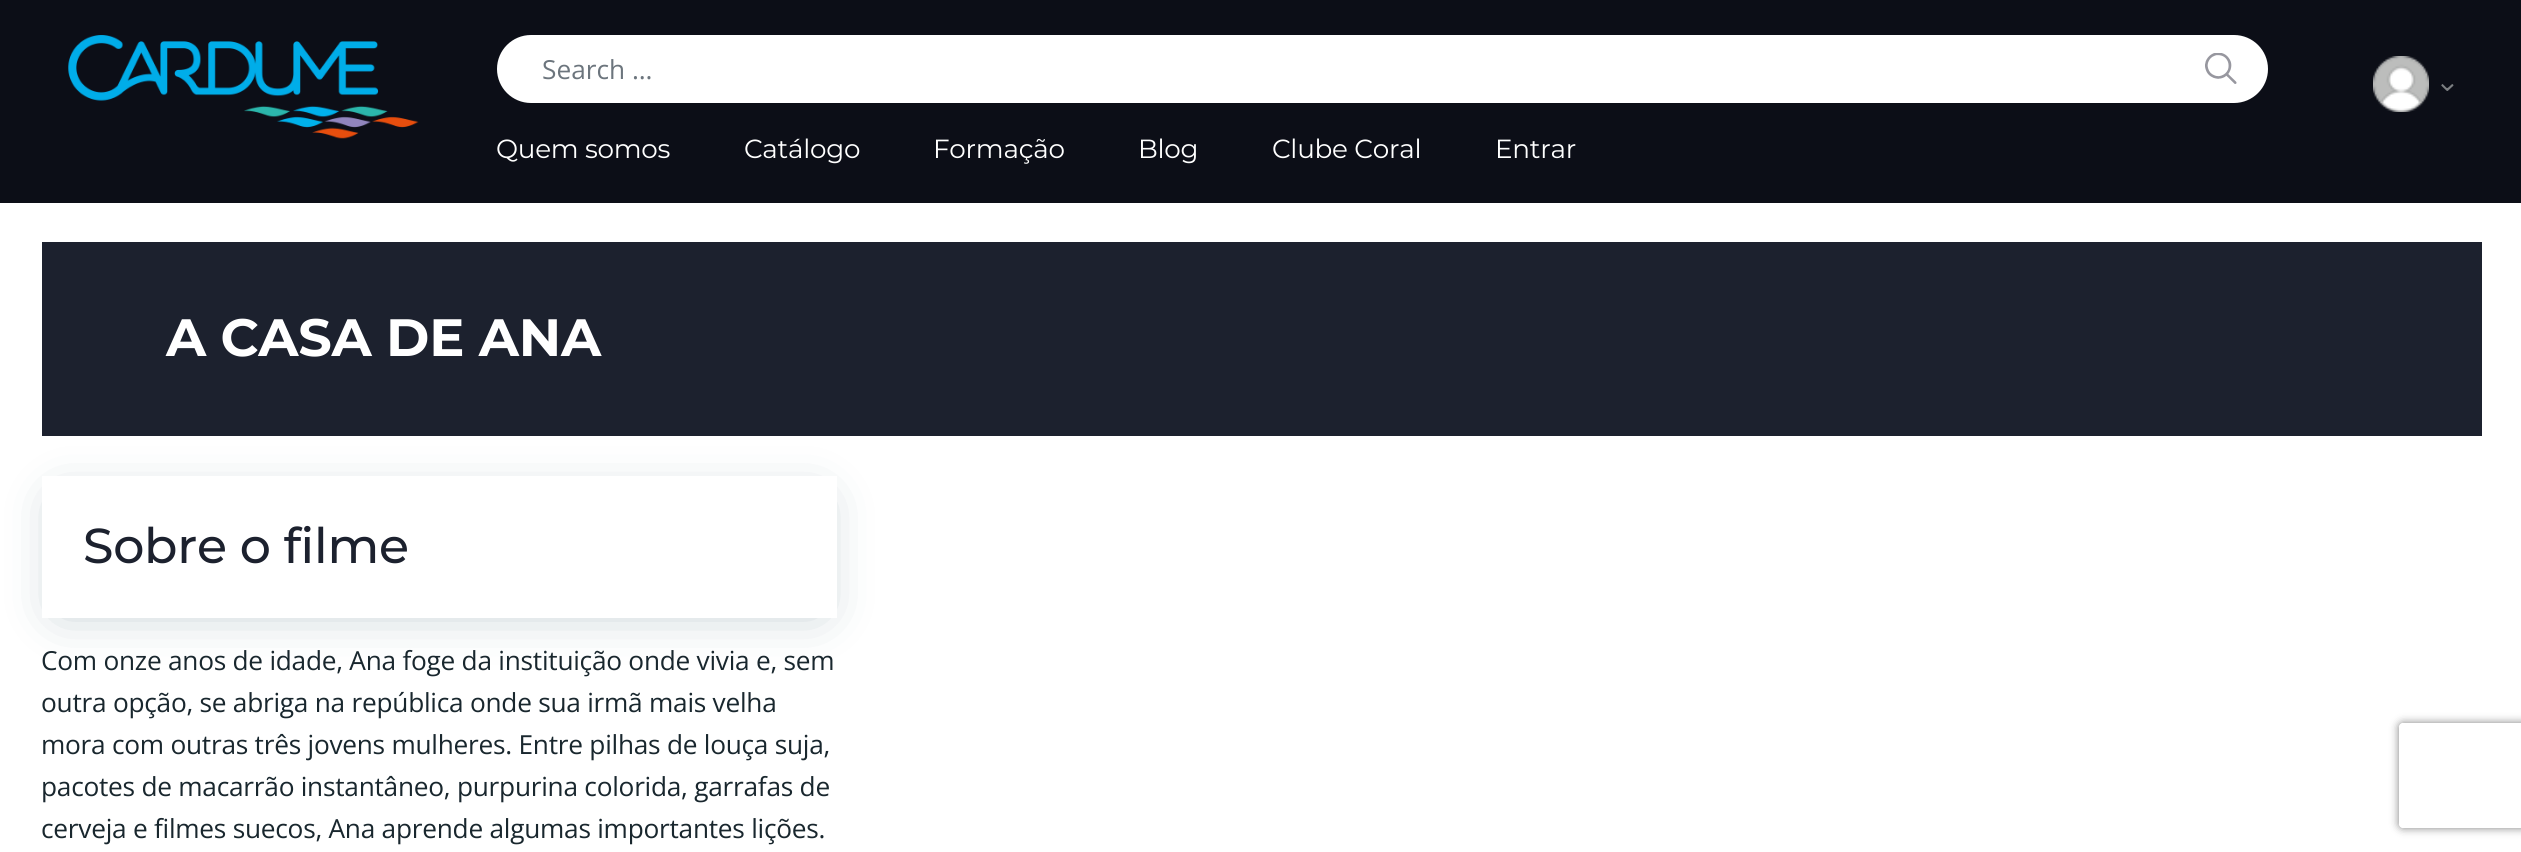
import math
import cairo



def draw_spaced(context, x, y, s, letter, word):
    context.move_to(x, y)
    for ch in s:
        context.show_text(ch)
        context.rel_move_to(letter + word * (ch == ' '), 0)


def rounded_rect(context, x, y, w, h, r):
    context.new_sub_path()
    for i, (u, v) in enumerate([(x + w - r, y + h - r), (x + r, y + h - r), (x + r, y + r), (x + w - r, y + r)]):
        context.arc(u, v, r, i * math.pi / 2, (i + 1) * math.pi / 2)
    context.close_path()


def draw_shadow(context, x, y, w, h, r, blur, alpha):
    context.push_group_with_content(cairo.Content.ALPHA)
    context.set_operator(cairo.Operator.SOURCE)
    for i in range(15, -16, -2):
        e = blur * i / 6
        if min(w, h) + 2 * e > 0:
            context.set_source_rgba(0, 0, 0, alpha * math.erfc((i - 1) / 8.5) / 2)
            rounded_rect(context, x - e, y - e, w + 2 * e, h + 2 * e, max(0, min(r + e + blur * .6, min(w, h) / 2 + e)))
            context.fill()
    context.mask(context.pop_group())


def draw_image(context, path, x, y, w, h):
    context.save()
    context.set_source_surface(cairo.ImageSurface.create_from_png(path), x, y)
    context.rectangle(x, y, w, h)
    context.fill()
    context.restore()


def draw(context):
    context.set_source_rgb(1, 1, 1)
    context.paint()
    context.set_source_rgb(12 / 255, 14 / 255, 23 / 255)
    context.rectangle(0, 0, 2521, 203)
    context.fill()
    draw_image(context, "images/1.png", 68, 35, 351, 104)
    context.set_source_rgb(1, 1, 1)
    rounded_rect(context, 498, 36, 1769, 66, 33)
    context.fill_preserve()
    context.stroke()
    draw_image(context, "images/2.png", 2205, 53, 32, 31)
    draw_image(context, "images/3.png", 2373, 56, 56, 56)
    draw_image(context, "images/4.png", 2441, 84, 13, 7)
    context.set_source_rgb(28 / 255, 33 / 255, 46 / 255)
    context.rectangle(42, 242, 2440, 194)
    context.fill()
    context.set_source_rgb(18 / 255, 63 / 255, 82 / 255)
    draw_shadow(context, 60, 502, 759, 107, 0, 26, 0.3)
    context.set_source_rgb(1, 1, 1)
    context.rectangle(42, 476, 795, 142)
    context.fill()
    context.save()
    context.set_fill_rule(cairo.FillRule.EVEN_ODD)
    context.new_path()
    context.move_to(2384, 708)
    context.line_to(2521, 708)
    context.line_to(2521, 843)
    context.line_to(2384, 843)
    context.close_path()
    context.move_to(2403, 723)
    context.line_to(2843, 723)
    context.curve_to(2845, 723, 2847, 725, 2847, 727)
    context.line_to(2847, 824)
    context.curve_to(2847, 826, 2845, 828, 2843, 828)
    context.line_to(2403, 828)
    context.curve_to(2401, 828, 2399, 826, 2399, 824)
    context.line_to(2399, 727)
    context.curve_to(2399, 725, 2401, 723, 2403, 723)
    context.close_path()
    context.clip()
    context.set_source_rgb(128 / 255, 128 / 255, 128 / 255)
    draw_shadow(context, 2399, 723, 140, 105, 4, 4.5, 1)
    context.restore()
    context.select_font_face("Open Sans")
    context.set_font_size(26.25)
    context.set_source_rgb(108 / 255, 117 / 255, 125 / 255)
    context.move_to(542, 79)
    context.show_text("Search …")
    context.select_font_face("Montserrat")
    context.set_source_rgb(1, 1, 1)
    draw_spaced(context, 496, 158, "Quem somos", -0.25, 0)
    draw_spaced(context, 744, 158, "Catálogo", -0.25, 0)
    draw_spaced(context, 933, 158, "Formação", -0.25, 0)
    draw_spaced(context, 1138, 158, "Blog", -0.25, 0)
    draw_spaced(context, 1272, 158, "Clube Coral", -0.25, 0)
    draw_spaced(context, 1495, 158, "Entrar", -0.25, 0)
    context.select_font_face("Montserrat", cairo.FontSlant.NORMAL, cairo.FontWeight.BOLD)
    context.set_font_size(52.5)
    draw_spaced(context, 166, 356, "A CASA DE ANA", -0.25, 0)
    context.select_font_face("Montserrat Medium")
    context.set_font_size(49)
    context.set_source_rgb(28 / 255, 33 / 255, 46 / 255)
    draw_spaced(context, 83, 563, "Sobre o filme", -0.25, 0)
    context.select_font_face("Open Sans")
    context.set_font_size(26.25)
    context.set_source_rgb(25 / 255, 39 / 255, 46 / 255)
    draw_spaced(context, 41, 670, "Com onze anos de idade, Ana foge da instituição onde vivia e, sem", -0.25, 0)
    draw_spaced(context, 41, 712, "outra opção, se abriga na república onde sua irmã mais velha", -0.25, 0)
    draw_spaced(context, 41, 754, "mora com outras três jovens mulheres. Entre pilhas de louça suja,", -0.25, 0)
    draw_spaced(context, 41, 796, "pacotes de macarrão instantâneo, purpurina colorida, garrafas de", -0.25, 0)
    draw_spaced(context, 41, 838, "cerveja e filmes suecos, Ana aprende algumas importantes lições.", -0.25, 0)


surface = cairo.ImageSurface(cairo.Format.RGB24, 2521, 852)
context = cairo.Context(surface)
options = cairo.FontOptions()
options.set_hint_metrics(cairo.HintMetrics.OFF)
options.set_hint_style(cairo.HintStyle.NONE)
context.set_font_options(options)
context.set_miter_limit(4)
draw(context)
surface.write_to_png("out.png")
